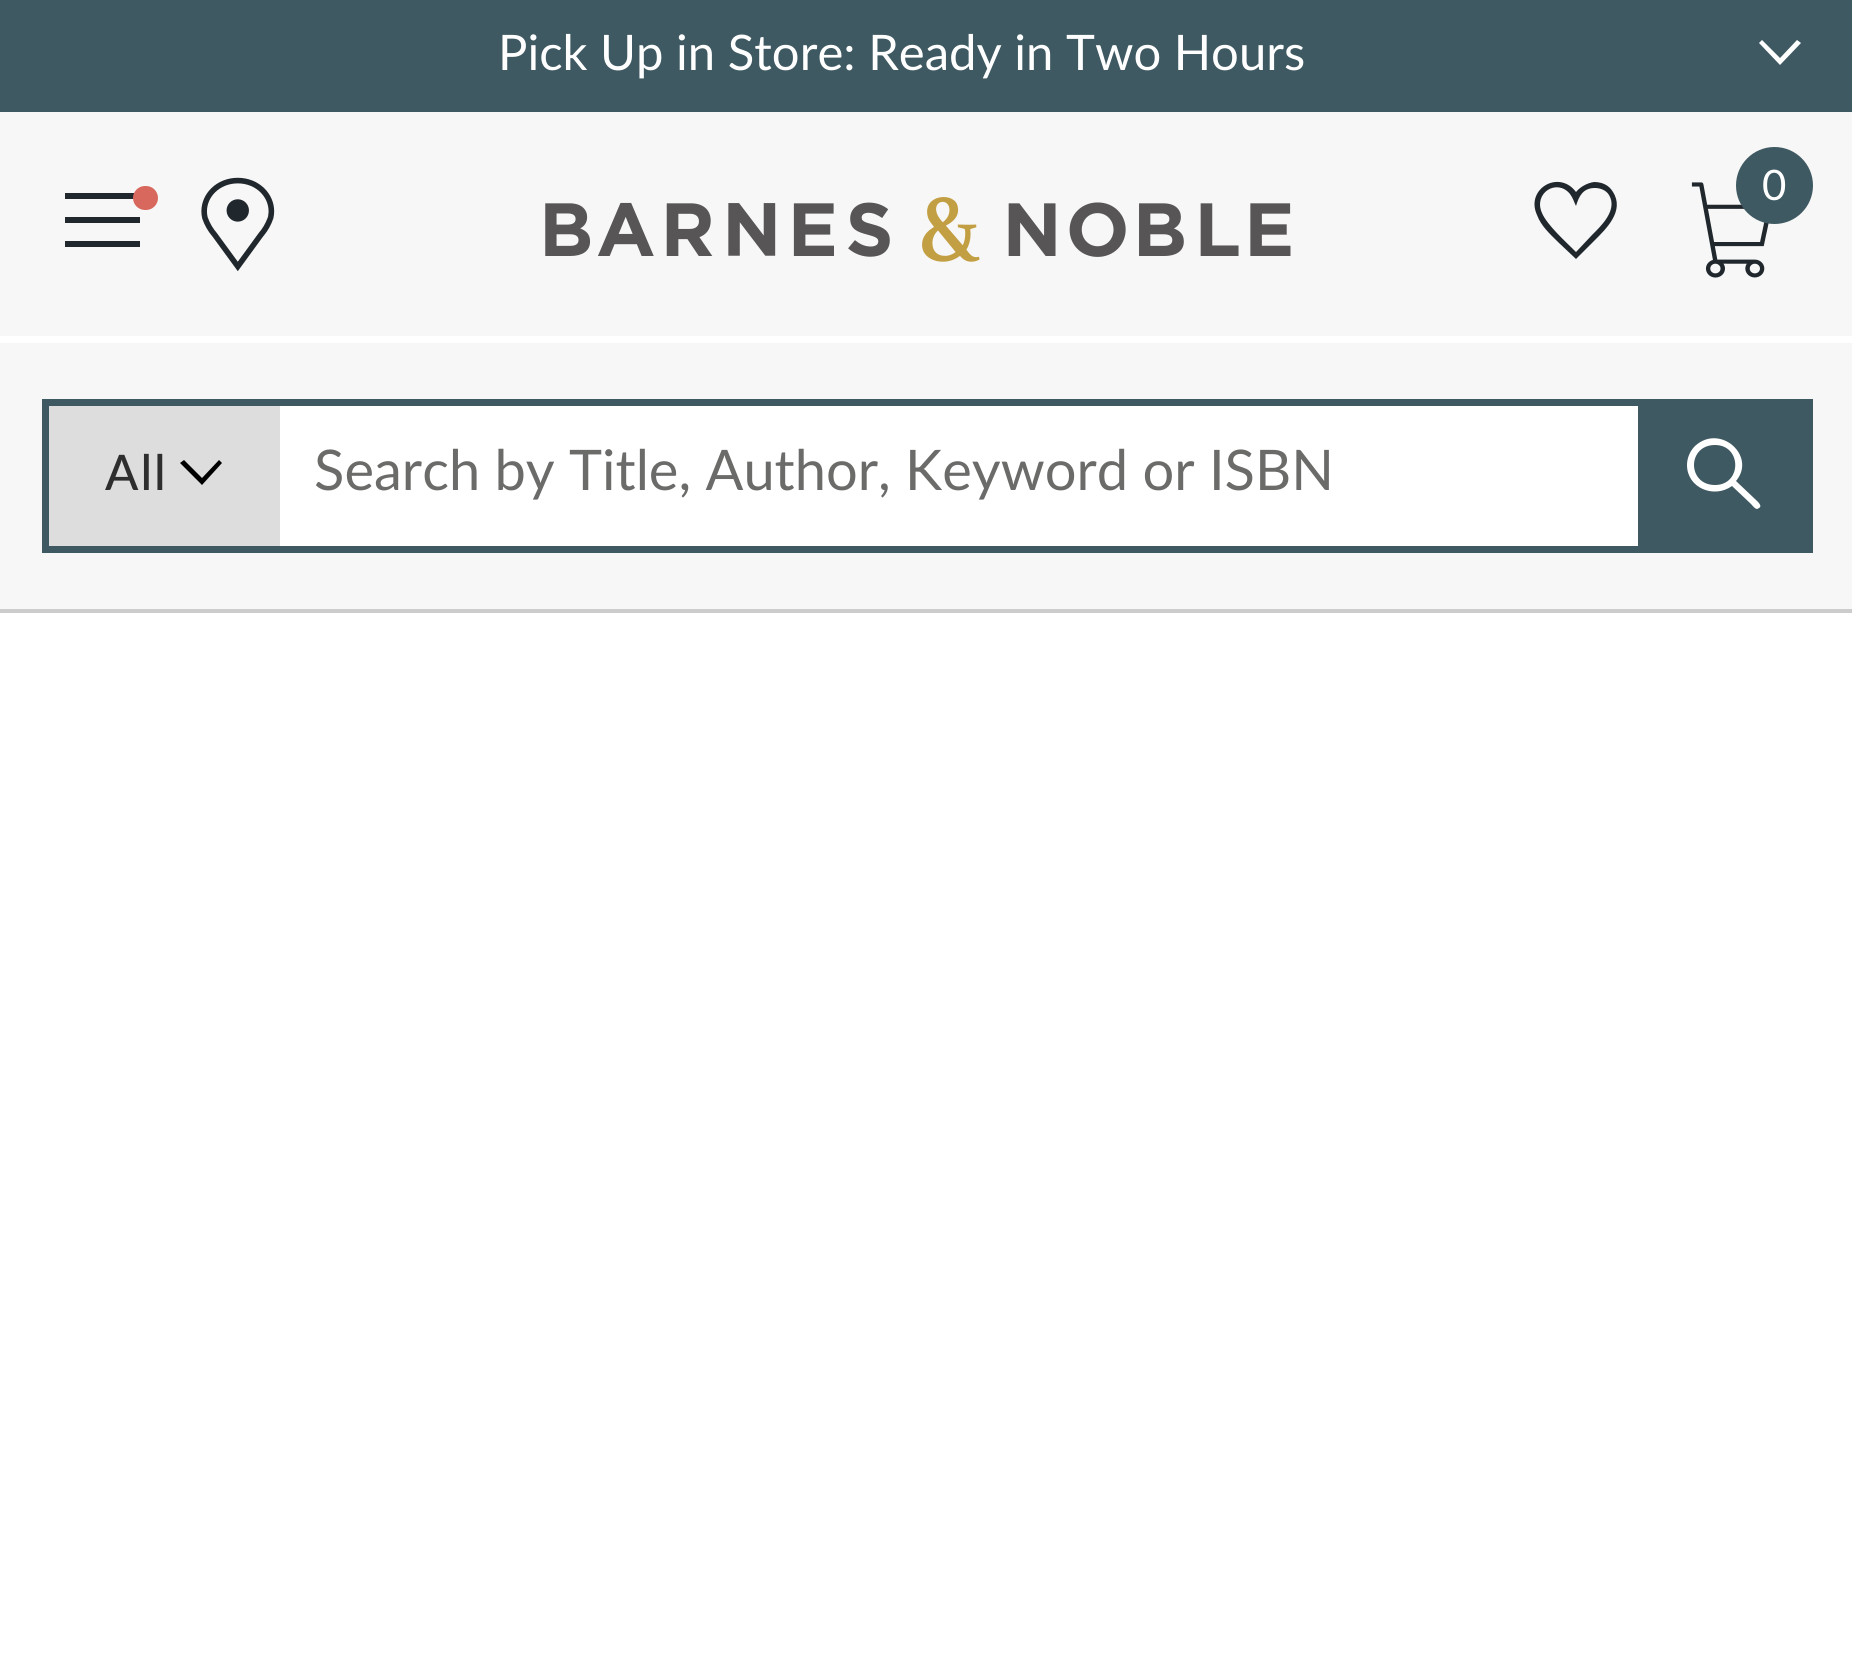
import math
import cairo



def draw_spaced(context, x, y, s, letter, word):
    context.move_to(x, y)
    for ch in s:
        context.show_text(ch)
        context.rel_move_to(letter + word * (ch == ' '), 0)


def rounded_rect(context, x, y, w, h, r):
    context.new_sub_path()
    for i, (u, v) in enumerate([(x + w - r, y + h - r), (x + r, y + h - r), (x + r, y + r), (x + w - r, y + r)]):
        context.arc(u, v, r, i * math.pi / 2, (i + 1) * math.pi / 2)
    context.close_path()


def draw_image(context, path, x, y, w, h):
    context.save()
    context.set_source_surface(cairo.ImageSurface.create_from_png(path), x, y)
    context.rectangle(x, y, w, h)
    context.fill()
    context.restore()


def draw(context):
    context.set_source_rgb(1, 1, 1)
    context.paint()
    context.set_source_rgb(204 / 255, 204 / 255, 204 / 255)
    context.rectangle(0, 609, 1852, 4)
    context.fill()
    context.set_source_rgb(62 / 255, 89 / 255, 98 / 255)
    context.rectangle(0, 0, 1852, 112)
    context.fill()
    context.set_source_rgb(1, 1, 1)
    context.new_path()
    context.move_to(1762, 40)
    context.line_to(1780, 58)
    context.line_to(1797, 40)
    context.line_to(1801, 43)
    context.line_to(1780, 65)
    context.line_to(1759, 43)
    context.close_path()
    context.fill()
    context.set_source_rgb(247 / 255, 247 / 255, 247 / 255)
    context.rectangle(0, 112, 1852, 497)
    context.fill()
    context.set_source_rgb(1, 1, 1)
    context.rectangle(0, 336, 1852, 7)
    context.fill()
    draw_image(context, "images/1.png", 201, 177, 74, 95)
    draw_image(context, "images/2.png", 545, 197, 746, 65)
    draw_image(context, "images/3.png", 1691, 182, 78, 96)
    context.set_source_rgb(62 / 255, 89 / 255, 98 / 255)
    context.arc(1774.5, 185.5, 38.5, 0, 2 * math.pi)
    context.fill()
    context.set_source_rgb(1, 1, 1)
    context.rectangle(280, 406, 1358, 140)
    context.fill()
    context.rectangle(45.5, 402.5, 1764, 147)
    context.set_source_rgb(62 / 255, 89 / 255, 98 / 255)
    context.set_line_width(7)
    context.stroke()
    context.set_source_rgb(221 / 255, 221 / 255, 221 / 255)
    context.rectangle(49, 406, 231, 140)
    context.fill()
    context.set_source_rgb(0, 0, 0)
    context.new_path()
    context.move_to(184, 460)
    context.line_to(202, 478)
    context.line_to(219, 460)
    context.line_to(222, 463)
    context.line_to(202, 485)
    context.line_to(180, 463)
    context.close_path()
    context.fill()
    context.set_source_rgb(62 / 255, 89 / 255, 98 / 255)
    context.rectangle(1638, 406, 168, 140)
    context.fill()
    context.set_source_rgb(1, 1, 1)
    context.set_fill_rule(cairo.FillRule.EVEN_ODD)
    context.new_path()
    context.move_to(1715, 485)
    context.curve_to(1742, 485, 1742, 445, 1715, 445)
    context.curve_to(1687, 445, 1687, 485, 1715, 485)
    context.close_path()
    context.move_to(1687, 465)
    context.curve_to(1687, 458, 1690, 451, 1695, 446)
    context.curve_to(1720, 423, 1757, 456, 1736, 481)
    context.line_to(1756, 500)
    context.curve_to(1757, 501, 1763, 506, 1759, 508)
    context.curve_to(1756, 511, 1753, 506, 1751, 504)
    context.line_to(1732, 486)
    context.curve_to(1714, 499, 1687, 488, 1687, 465)
    context.close_path()
    context.fill()
    context.save()
    context.set_fill_rule(cairo.FillRule.WINDING)
    context.rectangle(53, 193, 87, 63)
    context.clip()
    context.set_source_rgb(33 / 255, 40 / 255, 45 / 255)
    context.set_fill_rule(cairo.FillRule.EVEN_ODD)
    context.new_path()
    context.move_to(65, 247)
    context.line_to(141, 247)
    context.line_to(141, 241)
    context.line_to(65, 241)
    context.close_path()
    context.move_to(65, 223)
    context.line_to(141, 223)
    context.line_to(141, 217)
    context.line_to(65, 217)
    context.close_path()
    context.move_to(65, 193)
    context.line_to(65, 199)
    context.line_to(141, 199)
    context.line_to(141, 193)
    context.close_path()
    context.fill()
    context.restore()
    context.set_source_rgb(216 / 255, 104 / 255, 93 / 255)
    rounded_rect(context, 133, 186, 25, 24, 12)
    context.fill()
    context.set_source_rgb(33 / 255, 40 / 255, 45 / 255)
    context.set_fill_rule(cairo.FillRule.WINDING)
    context.new_path()
    context.move_to(1594, 182)
    context.curve_to(1587, 183, 1580, 187, 1576, 192)
    context.curve_to(1559, 169, 1525, 189, 1537, 215)
    context.curve_to(1541, 226, 1550, 234, 1558, 242)
    context.line_to(1576, 259)
    context.line_to(1594, 241)
    context.curve_to(1606, 229, 1625, 211, 1613, 192)
    context.curve_to(1609, 185, 1602, 182, 1594, 182)
    context.close_path()
    context.move_to(1595, 188)
    context.curve_to(1600, 188, 1606, 190, 1609, 195)
    context.curve_to(1618, 210, 1601, 226, 1592, 235)
    context.line_to(1576, 252)
    context.curve_to(1566, 242, 1547, 225, 1542, 213)
    context.curve_to(1533, 193, 1557, 178, 1570, 194)
    context.curve_to(1573, 198, 1574, 202, 1576, 206)
    context.curve_to(1579, 196, 1583, 188, 1595, 188)
    context.close_path()
    context.fill()
    context.select_font_face("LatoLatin")
    context.set_font_size(49)
    context.set_source_rgb(1, 1, 1)
    context.move_to(498, 70)
    context.show_text("Pick Up in Store: Ready in Two Hours")
    context.set_font_size(42)
    draw_spaced(context, 1762, 200, "0", 1, 0)
    context.select_font_face("LatoLatin Medium")
    context.set_font_size(49)
    context.set_source_rgb(46 / 255, 46 / 255, 46 / 255)
    draw_spaced(context, 105, 490, "All", 2, 0)
    context.select_font_face("LatoLatin")
    context.set_font_size(56)
    context.set_source_rgb(107 / 255, 107 / 255, 106 / 255)
    context.move_to(314, 490)
    context.show_text("Search by Title, Author, Keyword or ISBN")


surface = cairo.ImageSurface(cairo.Format.RGB24, 1852, 1664)
context = cairo.Context(surface)
options = cairo.FontOptions()
options.set_hint_metrics(cairo.HintMetrics.OFF)
options.set_hint_style(cairo.HintStyle.NONE)
context.set_font_options(options)
context.set_miter_limit(4)
draw(context)
surface.write_to_png("out.png")
